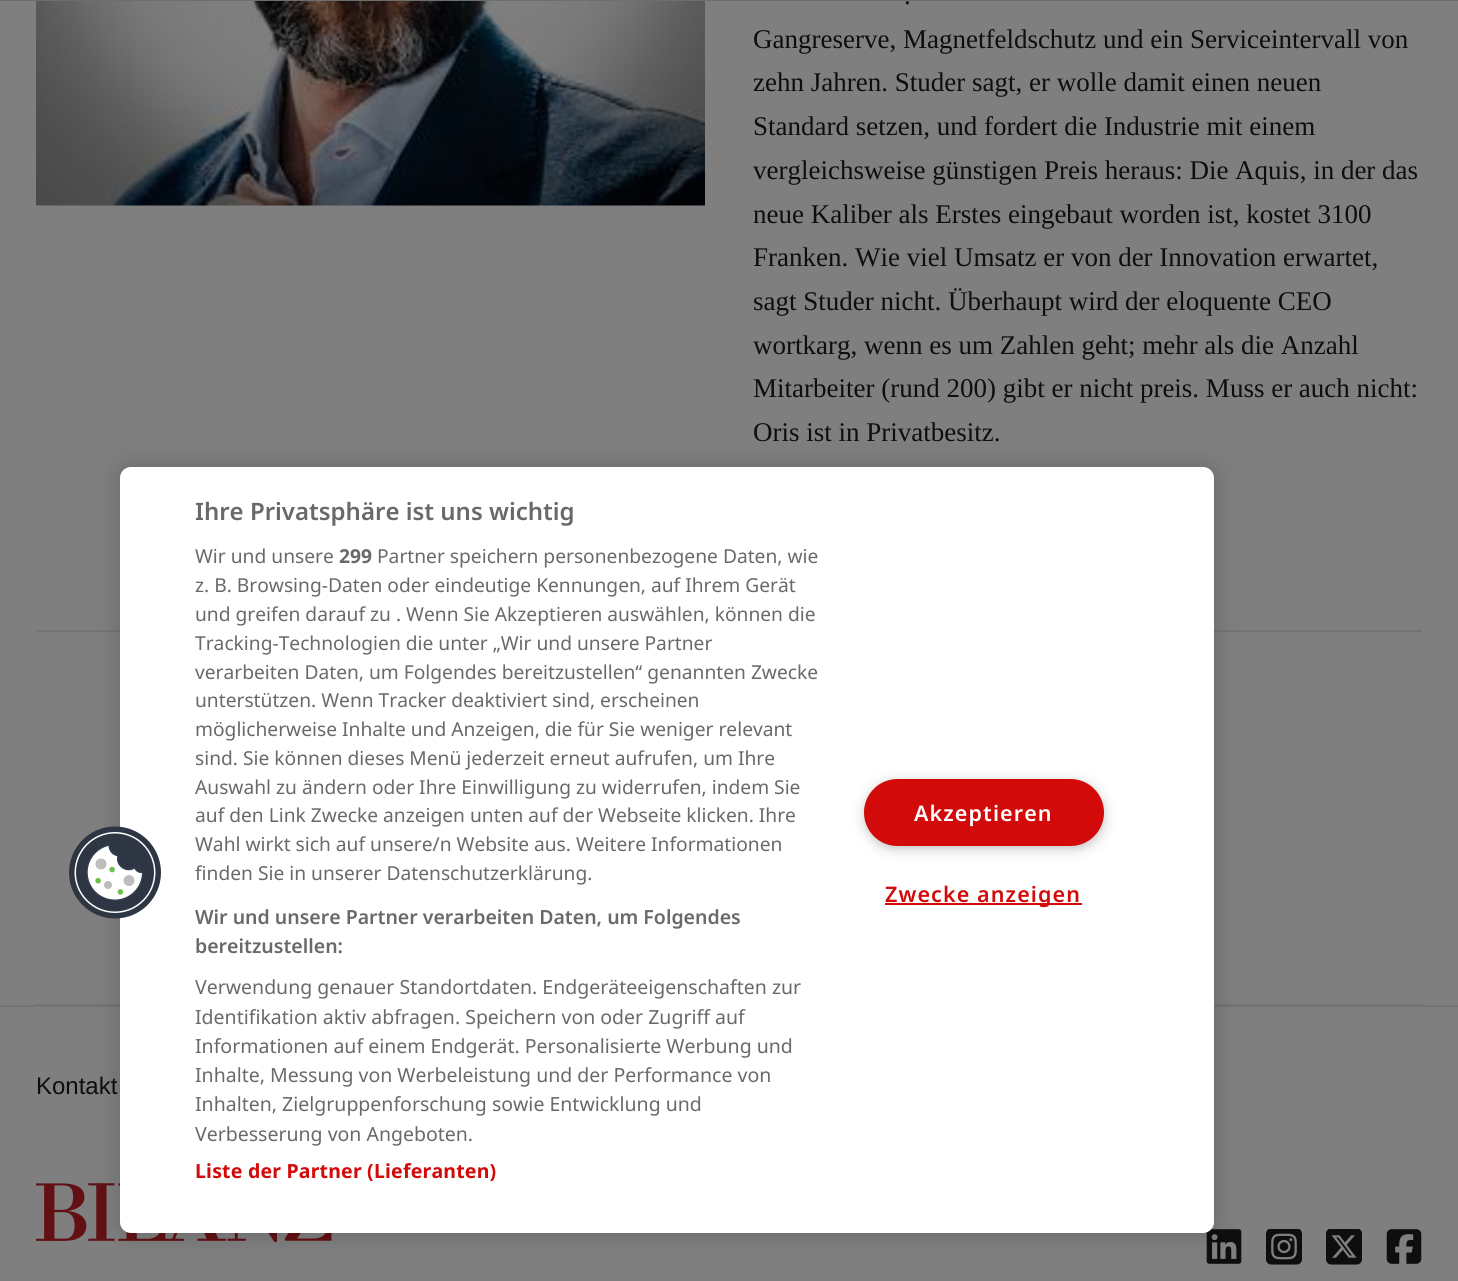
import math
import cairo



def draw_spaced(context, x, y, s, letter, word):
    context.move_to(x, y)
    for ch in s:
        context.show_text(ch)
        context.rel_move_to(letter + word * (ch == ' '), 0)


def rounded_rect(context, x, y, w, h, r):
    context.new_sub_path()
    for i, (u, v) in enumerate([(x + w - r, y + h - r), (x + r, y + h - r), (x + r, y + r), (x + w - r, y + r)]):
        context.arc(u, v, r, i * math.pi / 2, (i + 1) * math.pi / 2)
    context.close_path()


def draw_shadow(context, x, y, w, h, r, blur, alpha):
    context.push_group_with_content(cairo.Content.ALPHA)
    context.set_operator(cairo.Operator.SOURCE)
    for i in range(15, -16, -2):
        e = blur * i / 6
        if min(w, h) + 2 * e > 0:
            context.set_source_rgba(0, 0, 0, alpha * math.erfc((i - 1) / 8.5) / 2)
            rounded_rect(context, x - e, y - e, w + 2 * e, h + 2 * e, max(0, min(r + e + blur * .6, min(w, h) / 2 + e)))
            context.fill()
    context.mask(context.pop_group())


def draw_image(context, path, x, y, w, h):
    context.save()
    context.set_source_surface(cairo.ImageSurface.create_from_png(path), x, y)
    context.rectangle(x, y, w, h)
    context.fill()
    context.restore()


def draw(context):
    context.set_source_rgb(127 / 255, 127 / 255, 127 / 255)
    context.paint()
    context.set_source_rgb(110 / 255, 110 / 255, 110 / 255)
    context.rectangle(0, 0, 1458, 1)
    context.fill()
    draw_image(context, "images/1.png", 36, 1, 669, 205)
    context.set_source_rgb(115 / 255, 116 / 255, 118 / 255)
    context.rectangle(36, 630, 1386, 2)
    context.fill()
    context.rectangle(36, 1004, 1386, 1)
    context.fill()
    context.rectangle(0, 1005, 1458, 2)
    context.fill()
    draw_image(context, "images/2.png", 36, 1183, 296, 59)
    draw_image(context, "images/3.png", 1206, 1229, 36, 35)
    draw_image(context, "images/4.png", 1266, 1229, 36, 36)
    draw_image(context, "images/5.png", 1326, 1229, 36, 36)
    draw_image(context, "images/6.png", 1386, 1229, 36, 35)
    context.set_source_rgb(0, 0, 0)
    draw_shadow(context, 120, 467, 1094, 766, 11, 13.5, 0.2)
    context.set_source_rgb(1, 1, 1)
    rounded_rect(context, 120, 467, 1094, 766, 11)
    context.fill()
    draw_image(context, "images/7.png", 69, 826, 92, 93)
    context.set_source_rgb(153 / 255, 153 / 255, 153 / 255)
    draw_shadow(context, 869, 786, 231, 59, 29.5, 7.5, 1)
    context.set_source_rgb(210 / 255, 10 / 255, 9 / 255)
    rounded_rect(context, 865, 780, 238, 65, 32.5)
    context.fill_preserve()
    context.stroke()
    context.rectangle(885, 903, 197, 2)
    context.fill()
    context.select_font_face("Liberation Serif")
    context.set_font_size(27)
    context.set_source_rgb(14 / 255, 14 / 255, 14 / 255)
    context.move_to(904, 4)
    context.show_text(".")
    context.move_to(753, 48)
    context.show_text("Gangreserve, Magnetfeldschutz und ein Serviceintervall von")
    context.move_to(753, 91)
    context.show_text("zehn Jahren. Studer sagt, er wolle damit einen neuen")
    context.move_to(753, 135)
    context.show_text("Standard setzen, und fordert die Industrie mit einem")
    context.move_to(753, 179)
    context.show_text("vergleichsweise günstigen Preis heraus: Die Aquis, in der das")
    context.move_to(753, 223)
    context.show_text("neue Kaliber als Erstes eingebaut worden ist, kostet 3100")
    context.move_to(753, 266)
    context.show_text("Franken. Wie viel Umsatz er von der Innovation erwartet,")
    context.move_to(753, 310)
    context.show_text("sagt Studer nicht. Überhaupt wird der eloquente CEO")
    context.move_to(753, 354)
    context.show_text("wortkarg, wenn es um Zahlen geht; mehr als die Anzahl")
    context.move_to(753, 397)
    context.show_text("Mitarbeiter (rund 200) gibt er nicht preis. Muss er auch nicht:")
    context.move_to(753, 441)
    context.show_text("Oris ist in Privatbesitz.")
    context.select_font_face("Liberation Sans")
    context.set_font_size(24)
    context.move_to(36, 1094)
    context.show_text("Kontakt")
    context.select_font_face("Noto Sans SemiBold")
    context.set_source_rgb(105 / 255, 105 / 255, 105 / 255)
    context.move_to(195, 520)
    context.show_text("Ihre Privatsphäre ist uns wichtig")
    context.select_font_face("Noto Sans")
    context.set_font_size(19.2)
    context.move_to(195, 563)
    context.show_text("Wir und unsere")
    context.select_font_face("Noto Sans", cairo.FontSlant.NORMAL, cairo.FontWeight.BOLD)
    context.move_to(339, 563)
    context.show_text("299")
    context.select_font_face("Noto Sans")
    context.move_to(377, 563)
    context.show_text("Partner speichern personenbezogene Daten, wie")
    context.move_to(195, 592)
    context.show_text("z. B. Browsing-Daten oder eindeutige Kennungen, auf Ihrem Gerät")
    context.move_to(195, 621)
    context.show_text("und greifen darauf zu . Wenn Sie Akzeptieren auswählen, können die")
    context.move_to(195, 650)
    context.show_text("Tracking-Technologien die unter „Wir und unsere Partner")
    context.move_to(195, 679)
    context.show_text("verarbeiten Daten, um Folgendes bereitzustellen“ genannten Zwecke")
    context.move_to(195, 707)
    context.show_text("unterstützen. Wenn Tracker deaktiviert sind, erscheinen")
    context.move_to(195, 736)
    context.show_text("möglicherweise Inhalte und Anzeigen, die für Sie weniger relevant")
    context.move_to(195, 765)
    context.show_text("sind. Sie können dieses Menü jederzeit erneut aufrufen, um Ihre")
    context.move_to(195, 794)
    context.show_text("Auswahl zu ändern oder Ihre Einwilligung zu widerrufen, indem Sie")
    context.move_to(195, 822)
    context.show_text("auf den Link Zwecke anzeigen unten auf der Webseite klicken. Ihre")
    context.move_to(195, 851)
    context.show_text("Wahl wirkt sich auf unsere/n Website aus. Weitere Informationen")
    context.move_to(195, 880)
    context.show_text("finden Sie in unserer Datenschutzerklärung.")
    context.select_font_face("Noto Sans SemiBold")
    context.set_font_size(19.5)
    context.move_to(195, 924)
    context.show_text("Wir und unsere Partner verarbeiten Daten, um Folgendes")
    context.move_to(195, 953)
    context.show_text("bereitzustellen:")
    context.select_font_face("Noto Sans")
    context.move_to(195, 994)
    context.show_text("Verwendung genauer Standortdaten. Endgeräteeigenschaften zur")
    context.move_to(195, 1024)
    context.show_text("Identifikation aktiv abfragen. Speichern von oder Zugriff auf")
    context.move_to(195, 1053)
    context.show_text("Informationen auf einem Endgerät. Personalisierte Werbung und")
    context.move_to(195, 1082)
    context.show_text("Inhalte, Messung von Werbeleistung und der Performance von")
    context.move_to(195, 1111)
    context.show_text("Inhalten, Zielgruppenforschung sowie Entwicklung und")
    context.move_to(195, 1141)
    context.show_text("Verbesserung von Angeboten.")
    context.select_font_face("Noto Sans", cairo.FontSlant.NORMAL, cairo.FontWeight.BOLD)
    context.set_source_rgb(210 / 255, 10 / 255, 9 / 255)
    draw_spaced(context, 195, 1178, "Liste der Partner (Lieferanten)", 0.2, 0)
    context.select_font_face("Noto Sans SemiBold")
    context.set_font_size(21.5)
    context.set_source_rgb(1, 1, 1)
    draw_spaced(context, 914, 821, "Akzeptieren", 1.1, 0)
    context.set_source_rgb(210 / 255, 10 / 255, 9 / 255)
    draw_spaced(context, 885, 902, "Zwecke anzeigen", 1.1, 0)


surface = cairo.ImageSurface(cairo.Format.RGB24, 1458, 1281)
context = cairo.Context(surface)
options = cairo.FontOptions()
options.set_hint_metrics(cairo.HintMetrics.OFF)
options.set_hint_style(cairo.HintStyle.NONE)
context.set_font_options(options)
context.set_miter_limit(4)
draw(context)
surface.write_to_png("out.png")
